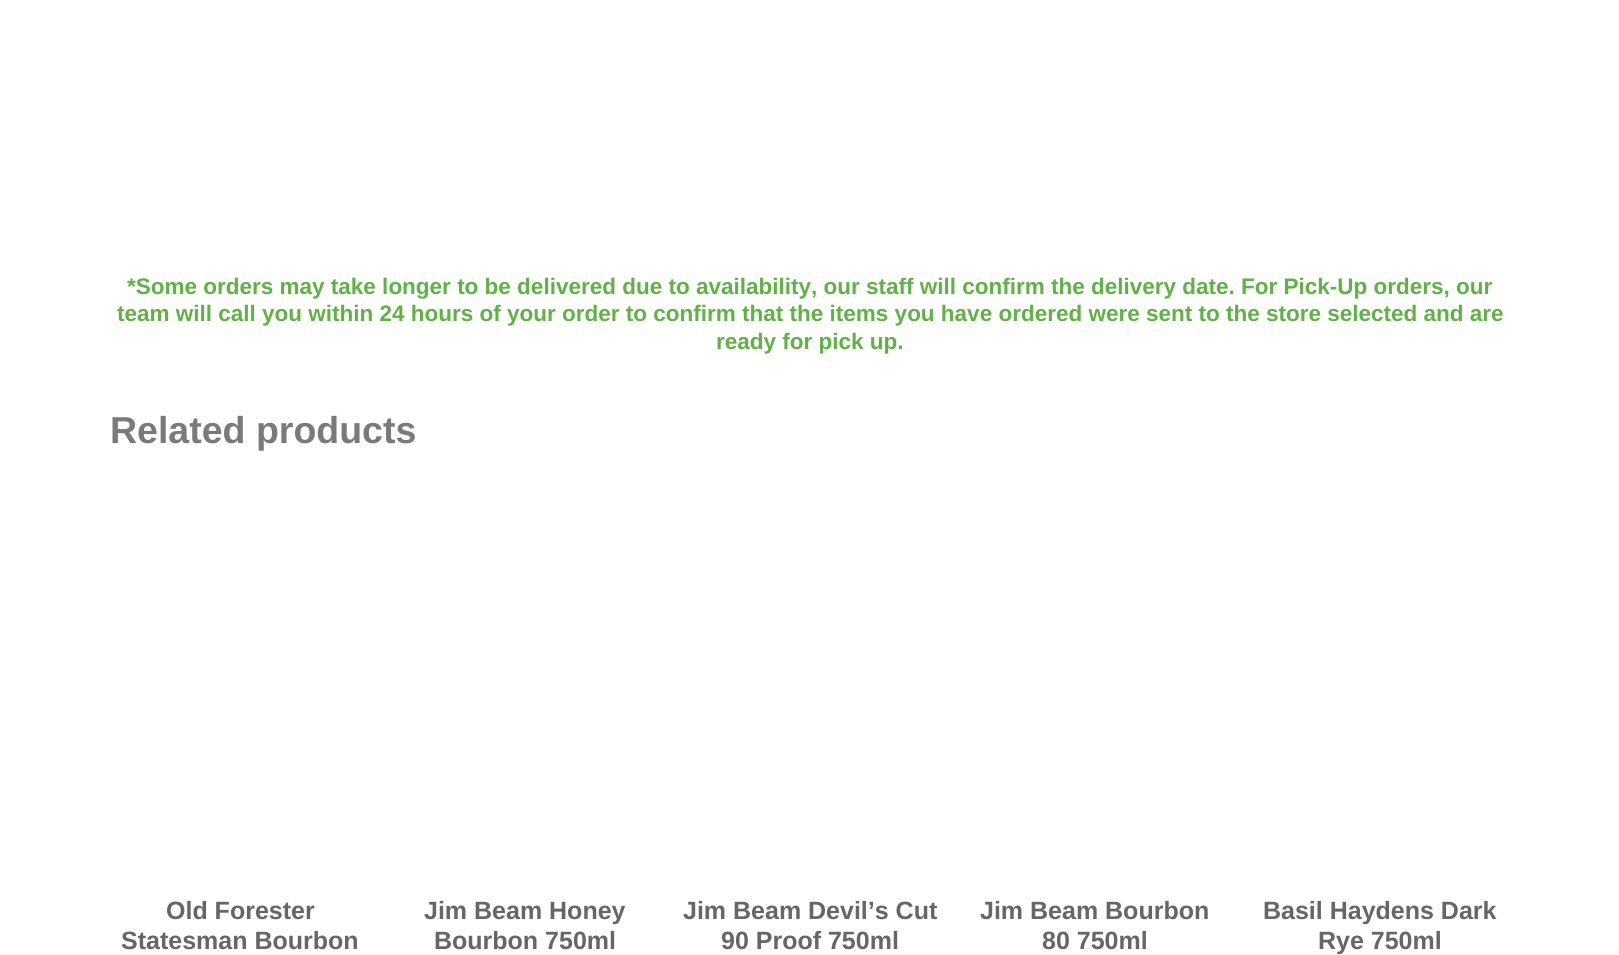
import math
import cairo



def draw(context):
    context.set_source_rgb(1, 1, 1)
    context.paint()
    context.select_font_face("Liberation Sans", cairo.FontSlant.NORMAL, cairo.FontWeight.BOLD)
    context.set_font_size(22.5)
    context.set_source_rgb(96 / 255, 177 / 255, 70 / 255)
    context.move_to(127, 294)
    context.show_text("*Some orders may take longer to be delivered due to availability, our staff will confirm the delivery date. For Pick-Up orders, our")
    context.move_to(117, 321)
    context.show_text("team will call you within 24 hours of your order to confirm that the items you have ordered were sent to the store selected and are")
    context.move_to(716, 349)
    context.show_text("ready for pick up.")
    context.set_font_size(37.5)
    context.set_source_rgb(122 / 255, 122 / 255, 122 / 255)
    context.move_to(110, 443)
    context.show_text("Related products")
    context.set_font_size(25)
    context.set_source_rgb(102 / 255, 102 / 255, 102 / 255)
    context.move_to(166, 919)
    context.show_text("Old Forester")
    context.move_to(121, 949)
    context.show_text("Statesman Bourbon")
    context.move_to(424, 919)
    context.show_text("Jim Beam Honey")
    context.move_to(434, 949)
    context.show_text("Bourbon 750ml")
    context.move_to(683, 919)
    context.show_text("Jim Beam Devil’s Cut")
    context.move_to(721, 949)
    context.show_text("90 Proof 750ml")
    context.move_to(980, 919)
    context.show_text("Jim Beam Bourbon")
    context.move_to(1042, 949)
    context.show_text("80 750ml")
    context.move_to(1263, 919)
    context.show_text("Basil Haydens Dark")
    context.move_to(1318, 949)
    context.show_text("Rye 750ml")


surface = cairo.ImageSurface(cairo.Format.RGB24, 1619, 955)
context = cairo.Context(surface)
options = cairo.FontOptions()
options.set_hint_metrics(cairo.HintMetrics.OFF)
options.set_hint_style(cairo.HintStyle.NONE)
context.set_font_options(options)
context.set_miter_limit(4)
draw(context)
surface.write_to_png("out.png")
